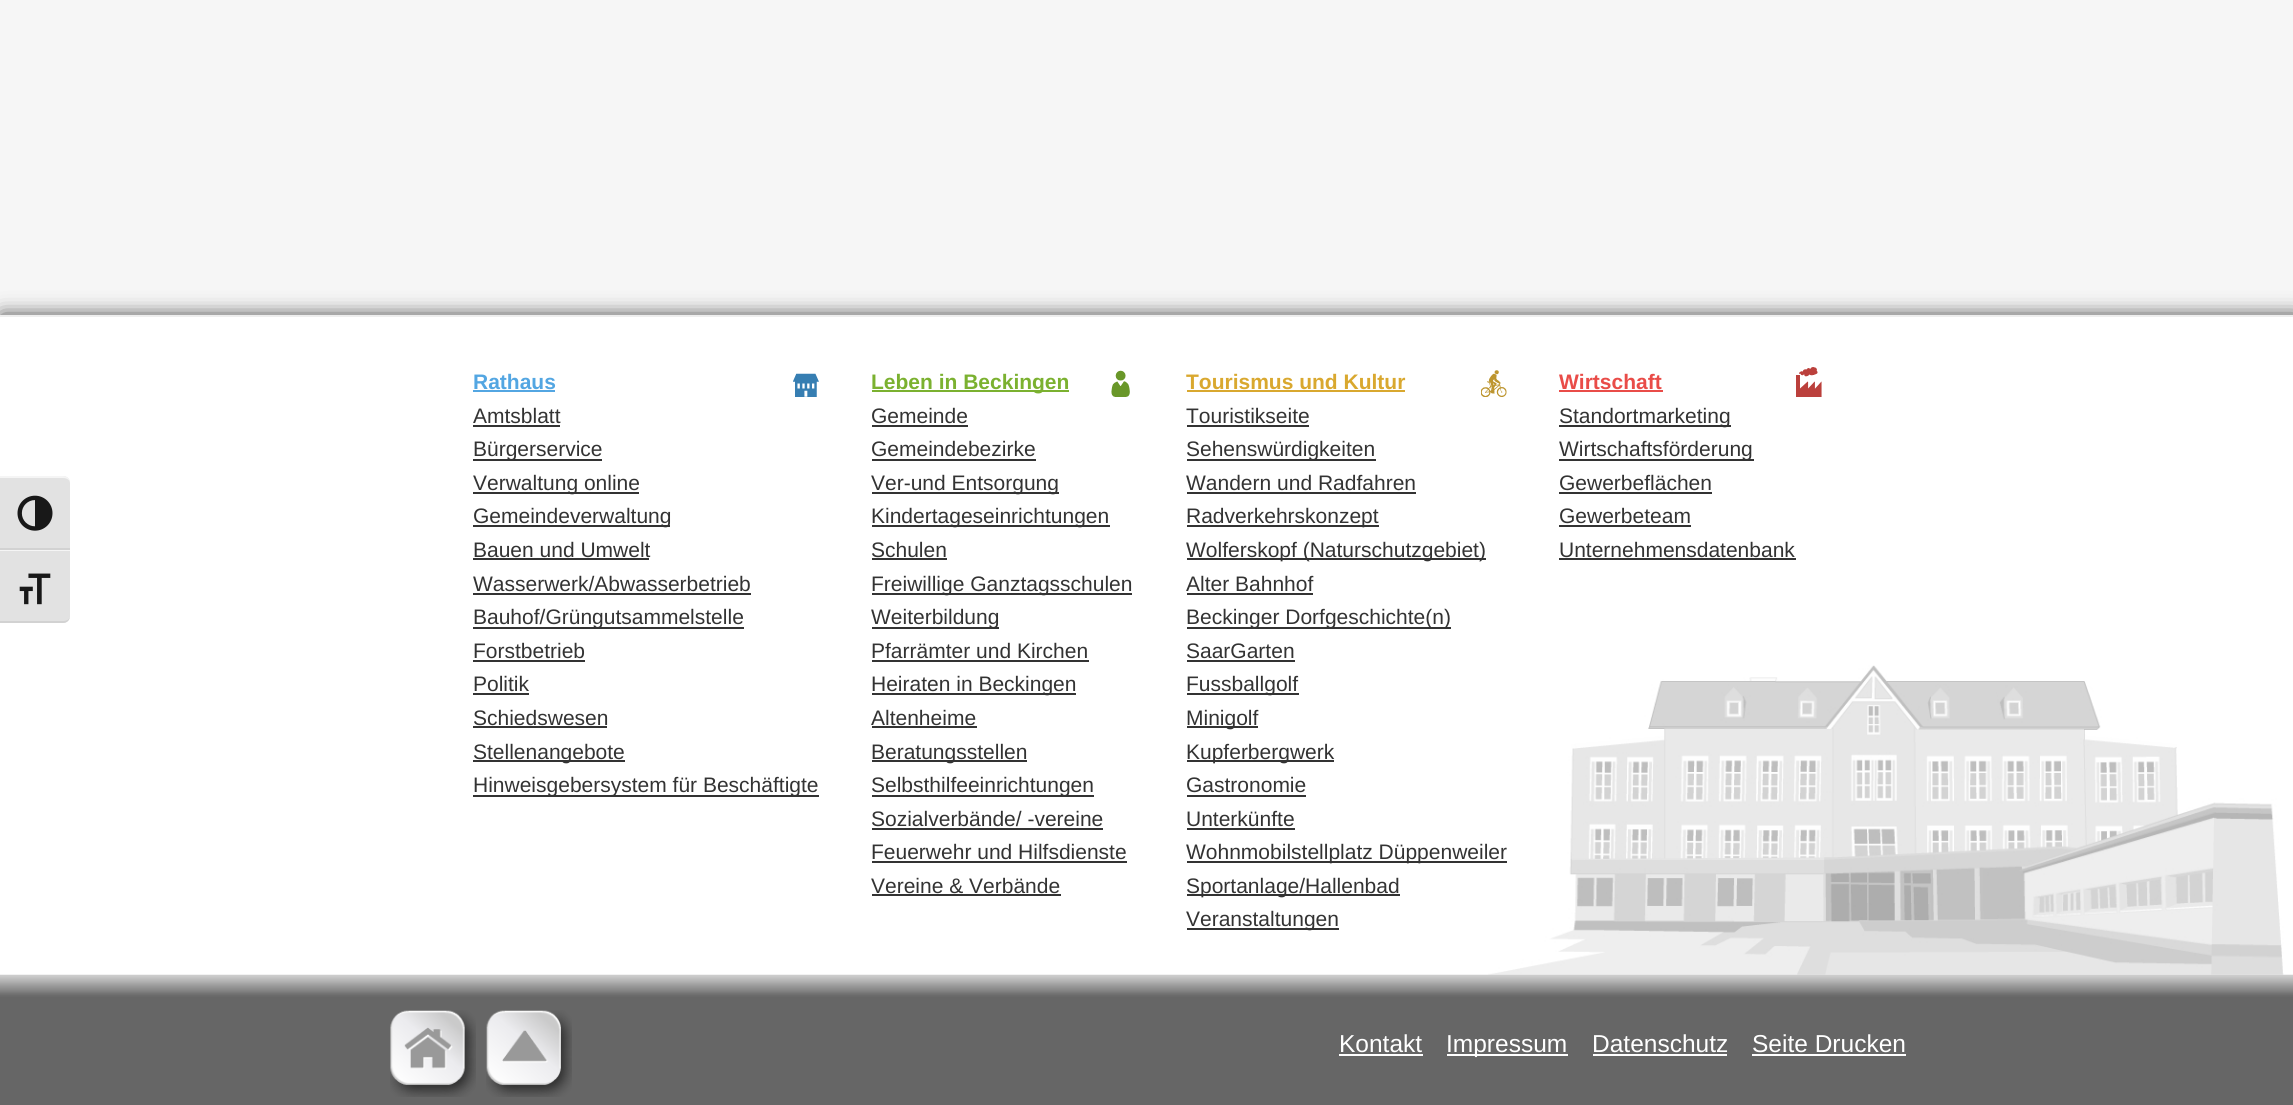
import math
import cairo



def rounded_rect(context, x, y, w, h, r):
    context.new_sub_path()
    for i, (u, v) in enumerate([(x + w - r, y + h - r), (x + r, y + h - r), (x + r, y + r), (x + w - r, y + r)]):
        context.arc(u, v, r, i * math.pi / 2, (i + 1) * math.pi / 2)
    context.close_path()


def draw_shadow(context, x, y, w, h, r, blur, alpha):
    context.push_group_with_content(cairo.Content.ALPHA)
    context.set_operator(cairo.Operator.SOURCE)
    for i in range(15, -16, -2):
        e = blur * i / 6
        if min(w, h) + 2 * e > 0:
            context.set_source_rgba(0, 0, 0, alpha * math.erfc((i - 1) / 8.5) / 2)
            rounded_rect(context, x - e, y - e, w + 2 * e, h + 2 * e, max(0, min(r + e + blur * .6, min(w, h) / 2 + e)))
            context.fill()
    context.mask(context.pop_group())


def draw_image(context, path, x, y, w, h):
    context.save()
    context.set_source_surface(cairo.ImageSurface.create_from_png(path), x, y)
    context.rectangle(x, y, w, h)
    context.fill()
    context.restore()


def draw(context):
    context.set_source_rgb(246 / 255, 246 / 255, 246 / 255)
    context.paint()
    context.set_source_rgb(34 / 255, 34 / 255, 34 / 255)
    draw_shadow(context, 2, 317, 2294, 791, 0, 10.5, 1)
    context.set_source_rgb(1, 1, 1)
    context.rectangle(0, 317, 2293, 658)
    context.fill()
    context.set_source_rgb(226 / 255, 226 / 255, 226 / 255)
    context.new_path()
    context.move_to(0, 476)
    context.line_to(63, 476)
    context.curve_to(67, 476, 70, 479, 70, 483)
    context.line_to(70, 550)
    context.line_to(0, 550)
    context.close_path()
    context.fill()
    context.set_source_rgb(245 / 255, 245 / 255, 245 / 255)
    context.new_path()
    context.move_to(0, 476)
    context.line_to(0, 478)
    context.line_to(63, 478)
    context.curve_to(67, 478, 70, 480, 70, 483)
    context.curve_to(70, 479, 67, 476, 63, 476)
    context.close_path()
    context.fill()
    context.set_source_rgb(210 / 255, 210 / 255, 210 / 255)
    context.rectangle(0, 548, 70, 2)
    context.fill()
    draw_image(context, "images/1.png", 17, 495, 36, 36)
    context.set_source_rgb(226 / 255, 226 / 255, 226 / 255)
    context.new_path()
    context.move_to(0, 550)
    context.line_to(70, 550)
    context.line_to(70, 616)
    context.curve_to(70, 620, 67, 623, 63, 623)
    context.line_to(0, 623)
    context.close_path()
    context.fill()
    context.set_source_rgb(245 / 255, 245 / 255, 245 / 255)
    context.rectangle(0, 550, 70, 1)
    context.fill()
    context.set_source_rgb(210 / 255, 210 / 255, 210 / 255)
    context.new_path()
    context.move_to(0, 621)
    context.line_to(0, 623)
    context.line_to(63, 623)
    context.curve_to(67, 623, 70, 620, 70, 616)
    context.curve_to(70, 619, 67, 621, 63, 621)
    context.close_path()
    context.fill()
    draw_image(context, "images/2.png", 19, 573, 32, 32)
    context.set_source_rgb(238 / 255, 238 / 255, 238 / 255)
    context.rectangle(0, 315, 2293, 2)
    context.fill()
    draw_image(context, "images/3.png", 1488, 665, 796, 310)
    draw_image(context, "images/4.png", 793, 373, 26, 24)
    context.set_source_rgb(83 / 255, 166 / 255, 226 / 255)
    context.rectangle(473, 390, 82, 2)
    context.fill()
    context.set_source_rgb(51 / 255, 51 / 255, 51 / 255)
    context.rectangle(473, 425, 87, 2)
    context.fill()
    context.rectangle(473, 459, 129, 2)
    context.fill()
    context.rectangle(473, 492, 166, 2)
    context.fill()
    context.rectangle(473, 525, 197, 2)
    context.fill()
    context.rectangle(473, 558, 176, 2)
    context.fill()
    context.rectangle(473, 593, 278, 2)
    context.fill()
    context.rectangle(473, 627, 271, 2)
    context.fill()
    context.rectangle(473, 660, 112, 2)
    context.fill()
    context.rectangle(473, 693, 56, 2)
    context.fill()
    context.rectangle(473, 726, 134, 2)
    context.fill()
    context.rectangle(473, 760, 152, 2)
    context.fill()
    context.rectangle(473, 795, 346, 2)
    context.fill()
    draw_image(context, "images/5.png", 1111, 370, 19, 27)
    context.set_source_rgb(123 / 255, 177 / 255, 48 / 255)
    context.rectangle(872, 390, 197, 2)
    context.fill()
    context.set_source_rgb(51 / 255, 51 / 255, 51 / 255)
    context.rectangle(872, 425, 96, 2)
    context.fill()
    context.rectangle(872, 459, 164, 2)
    context.fill()
    context.rectangle(872, 492, 187, 2)
    context.fill()
    context.rectangle(872, 525, 238, 2)
    context.fill()
    context.rectangle(872, 558, 75, 2)
    context.fill()
    context.rectangle(872, 593, 260, 2)
    context.fill()
    context.rectangle(872, 627, 127, 2)
    context.fill()
    context.rectangle(872, 660, 217, 2)
    context.fill()
    context.rectangle(872, 693, 204, 2)
    context.fill()
    context.rectangle(872, 726, 105, 2)
    context.fill()
    context.rectangle(872, 760, 155, 2)
    context.fill()
    context.rectangle(872, 795, 222, 2)
    context.fill()
    context.rectangle(872, 828, 231, 2)
    context.fill()
    context.rectangle(872, 861, 255, 2)
    context.fill()
    context.rectangle(872, 894, 189, 2)
    context.fill()
    draw_image(context, "images/6.png", 1481, 370, 26, 27)
    context.set_source_rgb(217 / 255, 168 / 255, 47 / 255)
    context.rectangle(1187, 390, 218, 2)
    context.fill()
    context.set_source_rgb(51 / 255, 51 / 255, 51 / 255)
    context.rectangle(1187, 425, 122, 2)
    context.fill()
    context.rectangle(1187, 459, 189, 2)
    context.fill()
    context.rectangle(1187, 492, 229, 2)
    context.fill()
    context.rectangle(1187, 525, 192, 2)
    context.fill()
    context.rectangle(1187, 558, 299, 2)
    context.fill()
    context.rectangle(1187, 593, 126, 2)
    context.fill()
    context.rectangle(1187, 627, 264, 2)
    context.fill()
    context.rectangle(1187, 660, 108, 2)
    context.fill()
    context.rectangle(1187, 693, 112, 2)
    context.fill()
    context.rectangle(1187, 726, 71, 2)
    context.fill()
    context.rectangle(1187, 760, 147, 2)
    context.fill()
    context.rectangle(1187, 795, 119, 2)
    context.fill()
    context.rectangle(1187, 828, 108, 2)
    context.fill()
    context.rectangle(1187, 861, 320, 2)
    context.fill()
    context.rectangle(1187, 894, 213, 2)
    context.fill()
    context.rectangle(1187, 928, 152, 2)
    context.fill()
    draw_image(context, "images/7.png", 1796, 367, 26, 30)
    context.set_source_rgb(233 / 255, 76 / 255, 72 / 255)
    context.rectangle(1559, 390, 104, 2)
    context.fill()
    context.set_source_rgb(51 / 255, 51 / 255, 51 / 255)
    context.rectangle(1559, 425, 172, 2)
    context.fill()
    context.rectangle(1559, 459, 195, 2)
    context.fill()
    context.rectangle(1559, 492, 153, 2)
    context.fill()
    context.rectangle(1559, 525, 132, 2)
    context.fill()
    context.rectangle(1559, 558, 237, 2)
    context.fill()
    draw_image(context, "images/8.png", 0, 974, 2293, 131)
    draw_image(context, "images/9.png", 390, 1010, 86, 87)
    draw_image(context, "images/10.png", 486, 1010, 86, 87)
    context.set_source_rgb(1, 1, 1)
    context.rectangle(1339, 1054, 84, 2)
    context.fill()
    context.rectangle(1447, 1054, 121, 2)
    context.fill()
    context.rectangle(1593, 1054, 134, 2)
    context.fill()
    context.rectangle(1752, 1054, 154, 2)
    context.fill()
    context.select_font_face("Liberation Sans", cairo.FontSlant.NORMAL, cairo.FontWeight.BOLD)
    context.set_font_size(21)
    context.set_source_rgb(83 / 255, 166 / 255, 226 / 255)
    context.move_to(473, 389)
    context.show_text("Rathaus")
    context.select_font_face("Liberation Sans")
    context.set_source_rgb(51 / 255, 51 / 255, 51 / 255)
    context.move_to(473, 423)
    context.show_text("Amtsblatt")
    context.move_to(473, 456)
    context.show_text("Bürgerservice")
    context.move_to(473, 490)
    context.show_text("Verwaltung online")
    context.move_to(473, 523)
    context.show_text("Gemeindeverwaltung")
    context.move_to(473, 557)
    context.show_text("Bauen und Umwelt")
    context.move_to(473, 591)
    context.show_text("Wasserwerk/Abwasserbetrieb")
    context.move_to(473, 624)
    context.show_text("Bauhof/Grüngutsammelstelle")
    context.move_to(473, 658)
    context.show_text("Forstbetrieb")
    context.move_to(473, 691)
    context.show_text("Politik")
    context.move_to(473, 725)
    context.show_text("Schiedswesen")
    context.move_to(473, 759)
    context.show_text("Stellenangebote")
    context.move_to(473, 792)
    context.show_text("Hinweisgebersystem für Beschäftigte")
    context.select_font_face("Liberation Sans", cairo.FontSlant.NORMAL, cairo.FontWeight.BOLD)
    context.set_source_rgb(123 / 255, 177 / 255, 48 / 255)
    context.move_to(871, 389)
    context.show_text("Leben in Beckingen")
    context.select_font_face("Liberation Sans")
    context.set_source_rgb(51 / 255, 51 / 255, 51 / 255)
    context.move_to(871, 423)
    context.show_text("Gemeinde")
    context.move_to(871, 456)
    context.show_text("Gemeindebezirke")
    context.move_to(871, 490)
    context.show_text("Ver-und Entsorgung")
    context.move_to(871, 523)
    context.show_text("Kindertageseinrichtungen")
    context.move_to(871, 557)
    context.show_text("Schulen")
    context.move_to(871, 591)
    context.show_text("Freiwillige Ganztagsschulen")
    context.move_to(871, 624)
    context.show_text("Weiterbildung")
    context.move_to(871, 658)
    context.show_text("Pfarrämter und Kirchen")
    context.move_to(871, 691)
    context.show_text("Heiraten in Beckingen")
    context.move_to(871, 725)
    context.show_text("Altenheime")
    context.move_to(871, 759)
    context.show_text("Beratungsstellen")
    context.move_to(871, 792)
    context.show_text("Selbsthilfeeinrichtungen")
    context.move_to(871, 826)
    context.show_text("Sozialverbände/ -vereine")
    context.move_to(871, 859)
    context.show_text("Feuerwehr und Hilfsdienste")
    context.move_to(871, 893)
    context.show_text("Vereine & Verbände")
    context.select_font_face("Liberation Sans", cairo.FontSlant.NORMAL, cairo.FontWeight.BOLD)
    context.set_source_rgb(217 / 255, 168 / 255, 47 / 255)
    context.move_to(1186, 389)
    context.show_text("Tourismus und Kultur")
    context.select_font_face("Liberation Sans")
    context.set_source_rgb(51 / 255, 51 / 255, 51 / 255)
    context.move_to(1186, 423)
    context.show_text("Touristikseite")
    context.move_to(1186, 456)
    context.show_text("Sehenswürdigkeiten")
    context.move_to(1186, 490)
    context.show_text("Wandern und Radfahren")
    context.move_to(1186, 523)
    context.show_text("Radverkehrskonzept")
    context.move_to(1186, 557)
    context.show_text("Wolferskopf (Naturschutzgebiet)")
    context.move_to(1186, 591)
    context.show_text("Alter Bahnhof")
    context.move_to(1186, 624)
    context.show_text("Beckinger Dorfgeschichte(n)")
    context.move_to(1186, 658)
    context.show_text("SaarGarten")
    context.move_to(1186, 691)
    context.show_text("Fussballgolf")
    context.move_to(1186, 725)
    context.show_text("Minigolf")
    context.move_to(1186, 759)
    context.show_text("Kupferbergwerk")
    context.move_to(1186, 792)
    context.show_text("Gastronomie")
    context.move_to(1186, 826)
    context.show_text("Unterkünfte")
    context.move_to(1186, 859)
    context.show_text("Wohnmobilstellplatz Düppenweiler")
    context.move_to(1186, 893)
    context.show_text("Sportanlage/Hallenbad")
    context.move_to(1186, 926)
    context.show_text("Veranstaltungen")
    context.select_font_face("Liberation Sans", cairo.FontSlant.NORMAL, cairo.FontWeight.BOLD)
    context.set_source_rgb(233 / 255, 76 / 255, 72 / 255)
    context.move_to(1559, 389)
    context.show_text("Wirtschaft")
    context.select_font_face("Liberation Sans")
    context.set_source_rgb(51 / 255, 51 / 255, 51 / 255)
    context.move_to(1559, 423)
    context.show_text("Standortmarketing")
    context.move_to(1559, 456)
    context.show_text("Wirtschaftsförderung")
    context.move_to(1559, 490)
    context.show_text("Gewerbeflächen")
    context.move_to(1559, 523)
    context.show_text("Gewerbeteam")
    context.move_to(1559, 557)
    context.show_text("Unternehmensdatenbank")
    context.set_font_size(24.5)
    context.set_source_rgb(1, 1, 1)
    context.move_to(1339, 1052)
    context.show_text("Kontakt")
    context.move_to(1446, 1052)
    context.show_text("Impressum")
    context.move_to(1592, 1052)
    context.show_text("Datenschutz")
    context.move_to(1752, 1052)
    context.show_text("Seite Drucken")


surface = cairo.ImageSurface(cairo.Format.RGB24, 2293, 1105)
context = cairo.Context(surface)
options = cairo.FontOptions()
options.set_hint_metrics(cairo.HintMetrics.OFF)
options.set_hint_style(cairo.HintStyle.NONE)
context.set_font_options(options)
context.set_miter_limit(4)
draw(context)
surface.write_to_png("out.png")
